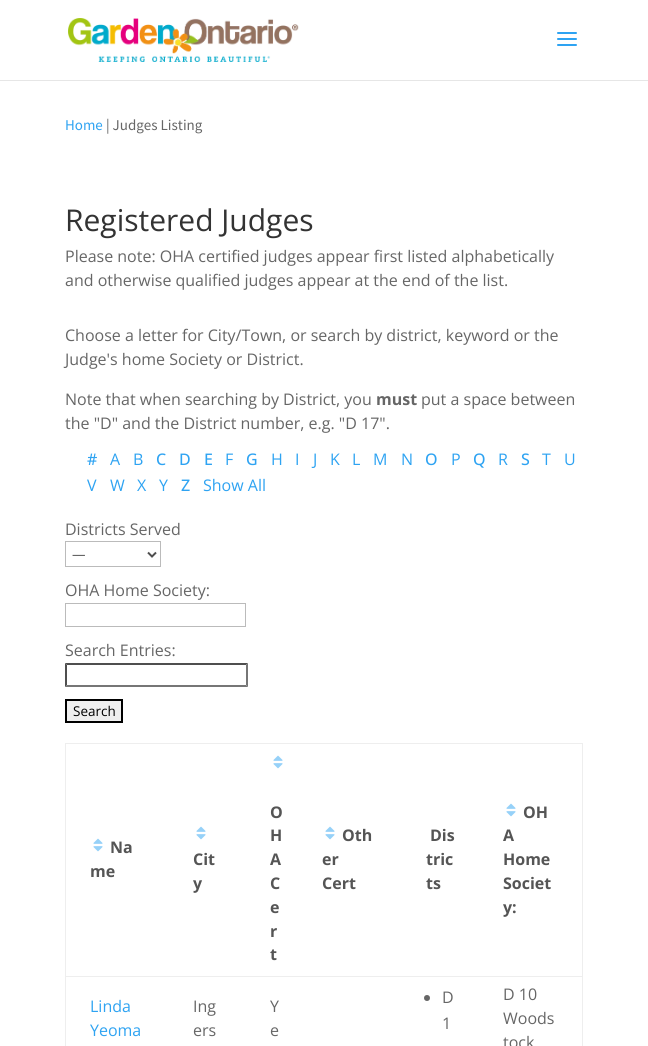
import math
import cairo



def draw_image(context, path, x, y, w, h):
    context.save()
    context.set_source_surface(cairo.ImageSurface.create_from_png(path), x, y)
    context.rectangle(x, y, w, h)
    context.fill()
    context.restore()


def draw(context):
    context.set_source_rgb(1, 1, 1)
    context.paint()
    context.set_source_rgb(230 / 255, 230 / 255, 230 / 255)
    context.rectangle(0, 80, 648, 1)
    context.fill()
    draw_image(context, "images/1.png", 68, 18, 231, 44)
    draw_image(context, "images/2.png", 557, 32, 20, 14)
    context.rectangle(65.5, 541.5, 95, 25)
    context.set_source_rgb(187 / 255, 187 / 255, 187 / 255)
    context.set_line_width(1)
    context.stroke()
    context.new_path()
    context.move_to(148, 552.5)
    context.line_to(152, 556.5)
    context.line_to(156, 552.5)
    context.set_source_rgb(78 / 255, 78 / 255, 78 / 255)
    context.set_line_width(2)
    context.stroke()
    context.rectangle(65.5, 603.5, 180, 23)
    context.set_source_rgb(187 / 255, 187 / 255, 187 / 255)
    context.set_line_width(1)
    context.stroke()
    context.set_source_rgb(79 / 255, 79 / 255, 79 / 255)
    context.new_path()
    context.move_to(65, 663)
    context.line_to(248, 663)
    context.line_to(246, 665)
    context.line_to(67, 665)
    context.close_path()
    context.fill()
    context.set_source_rgb(118 / 255, 118 / 255, 118 / 255)
    context.new_path()
    context.move_to(248, 663)
    context.line_to(248, 687)
    context.line_to(246, 685)
    context.line_to(246, 665)
    context.close_path()
    context.fill()
    context.new_path()
    context.move_to(248, 687)
    context.line_to(65, 687)
    context.line_to(67, 685)
    context.line_to(246, 685)
    context.close_path()
    context.fill()
    context.set_source_rgb(79 / 255, 79 / 255, 79 / 255)
    context.new_path()
    context.move_to(65, 687)
    context.line_to(65, 663)
    context.line_to(67, 665)
    context.line_to(67, 685)
    context.close_path()
    context.fill()
    context.set_source_rgb(239 / 255, 239 / 255, 239 / 255)
    context.rectangle(66, 700, 56, 22)
    context.fill_preserve()
    context.set_source_rgb(0, 0, 0)
    context.set_line_width(2)
    context.stroke()
    context.set_source_rgb(238 / 255, 238 / 255, 238 / 255)
    context.rectangle(65, 743, 518, 1)
    context.fill()
    context.rectangle(582, 743, 1, 303)
    context.fill()
    context.rectangle(65, 743, 1, 303)
    context.fill()
    draw_image(context, "images/3.png", 93, 838, 10, 14)
    draw_image(context, "images/3.png", 196, 826, 10, 14)
    draw_image(context, "images/3.png", 273, 755, 10, 14)
    draw_image(context, "images/3.png", 325, 826, 10, 14)
    draw_image(context, "images/3.png", 506, 803, 10, 14)
    context.set_source_rgb(102 / 255, 102 / 255, 102 / 255)
    context.arc(427, 998, 3, 0, 2 * math.pi)
    context.fill()
    context.set_source_rgb(238 / 255, 238 / 255, 238 / 255)
    context.rectangle(65, 976, 518, 1)
    context.fill()
    context.select_font_face("Source Sans Pro")
    context.set_font_size(15)
    context.set_source_rgb(46 / 255, 163 / 255, 242 / 255)
    context.move_to(65, 130)
    context.show_text("Home")
    context.set_source_rgb(102 / 255, 102 / 255, 102 / 255)
    context.move_to(106, 130)
    context.show_text("| Judges Listing")
    context.select_font_face("Open Sans")
    context.set_font_size(30)
    context.set_source_rgb(51 / 255, 51 / 255, 51 / 255)
    context.move_to(65, 231)
    context.show_text("Registered Judges")
    context.set_font_size(16)
    context.set_source_rgb(102 / 255, 102 / 255, 102 / 255)
    context.move_to(65, 262)
    context.show_text("Please note: OHA certified judges appear first listed alphabetically")
    context.move_to(65, 286)
    context.show_text("and otherwise qualified judges appear at the end of the list.")
    context.move_to(65, 341)
    context.show_text("Choose a letter for City/Town, or search by district, keyword or the")
    context.move_to(65, 365)
    context.show_text("Judge's home Society or District.")
    context.move_to(65, 405)
    context.show_text("Note that when searching by District, you")
    context.select_font_face("Open Sans", cairo.FontSlant.NORMAL, cairo.FontWeight.BOLD)
    context.move_to(376, 405)
    context.show_text("must")
    context.select_font_face("Open Sans")
    context.move_to(421, 405)
    context.show_text("put a space between")
    context.move_to(65, 429)
    context.show_text("the \"D\" and the District number, e.g. \"D 17\".")
    context.select_font_face("Open Sans Medium")
    context.set_source_rgb(46 / 255, 163 / 255, 242 / 255)
    context.move_to(87, 465)
    context.show_text("#")
    context.select_font_face("Open Sans")
    context.move_to(110, 465)
    context.show_text("A")
    context.move_to(133, 465)
    context.show_text("B")
    context.select_font_face("Open Sans Medium")
    context.move_to(156, 465)
    context.show_text("C")
    context.move_to(179, 465)
    context.show_text("D")
    context.move_to(204, 465)
    context.show_text("E")
    context.select_font_face("Open Sans")
    context.move_to(225, 465)
    context.show_text("F")
    context.select_font_face("Open Sans Medium")
    context.move_to(246, 465)
    context.show_text("G")
    context.select_font_face("Open Sans")
    context.move_to(271, 465)
    context.show_text("H")
    context.move_to(295, 465)
    context.show_text("I")
    context.move_to(313, 465)
    context.show_text("J")
    context.move_to(330, 465)
    context.show_text("K")
    context.move_to(352, 465)
    context.show_text("L")
    context.move_to(373, 465)
    context.show_text("M")
    context.move_to(401, 465)
    context.show_text("N")
    context.select_font_face("Open Sans Medium")
    context.move_to(425, 465)
    context.show_text("O")
    context.select_font_face("Open Sans")
    context.move_to(451, 465)
    context.show_text("P")
    context.select_font_face("Open Sans Medium")
    context.move_to(473, 465)
    context.show_text("Q")
    context.select_font_face("Open Sans")
    context.move_to(498, 465)
    context.show_text("R")
    context.select_font_face("Open Sans Medium")
    context.move_to(521, 465)
    context.show_text("S")
    context.select_font_face("Open Sans")
    context.move_to(542, 465)
    context.show_text("T")
    context.move_to(564, 465)
    context.show_text("U")
    context.move_to(87, 491)
    context.show_text("V")
    context.move_to(110, 491)
    context.show_text("W")
    context.move_to(137, 491)
    context.show_text("X")
    context.move_to(159, 491)
    context.show_text("Y")
    context.select_font_face("Open Sans Medium")
    context.move_to(181, 491)
    context.show_text("Z")
    context.select_font_face("Open Sans")
    context.move_to(203, 491)
    context.show_text("Show All")
    context.set_source_rgb(102 / 255, 102 / 255, 102 / 255)
    context.move_to(65, 535)
    context.show_text("Districts Served")
    context.set_font_size(13.5)
    context.set_source_rgb(78 / 255, 78 / 255, 78 / 255)
    context.move_to(72, 559)
    context.show_text("—")
    context.set_font_size(16)
    context.set_source_rgb(102 / 255, 102 / 255, 102 / 255)
    context.move_to(65, 596)
    context.show_text("OHA Home Society:")
    context.move_to(65, 656)
    context.show_text("Search Entries:")
    context.set_font_size(13.5)
    context.set_source_rgb(0, 0, 0)
    context.move_to(73, 716)
    context.show_text("Search")
    context.select_font_face("Open Sans", cairo.FontSlant.NORMAL, cairo.FontWeight.BOLD)
    context.set_font_size(16)
    context.set_source_rgb(85 / 255, 85 / 255, 85 / 255)
    context.move_to(110, 853)
    context.show_text("Na")
    context.move_to(90, 877)
    context.show_text("me")
    context.move_to(193, 865)
    context.show_text("Cit")
    context.move_to(193, 889)
    context.show_text("y")
    context.move_to(270, 818)
    context.show_text("O")
    context.move_to(270, 841)
    context.show_text("H")
    context.move_to(270, 865)
    context.show_text("A")
    context.move_to(270, 889)
    context.show_text("C")
    context.move_to(270, 913)
    context.show_text("e")
    context.move_to(270, 937)
    context.show_text("r")
    context.move_to(270, 960)
    context.show_text("t")
    context.move_to(342, 841)
    context.show_text("Oth")
    context.move_to(322, 865)
    context.show_text("er")
    context.move_to(322, 889)
    context.show_text("Cert")
    context.move_to(430, 841)
    context.show_text("Dis")
    context.move_to(426, 865)
    context.show_text("tric")
    context.move_to(426, 889)
    context.show_text("ts")
    context.move_to(523, 818)
    context.show_text("OH")
    context.move_to(503, 841)
    context.show_text("A")
    context.move_to(503, 865)
    context.show_text("Home")
    context.move_to(503, 889)
    context.show_text("Societ")
    context.move_to(503, 913)
    context.show_text("y:")
    context.select_font_face("Open Sans")
    context.set_source_rgb(46 / 255, 163 / 255, 242 / 255)
    context.move_to(90, 1012)
    context.show_text("Linda")
    context.move_to(90, 1036)
    context.show_text("Yeoma")
    context.set_source_rgb(102 / 255, 102 / 255, 102 / 255)
    context.move_to(193, 1012)
    context.show_text("Ing")
    context.move_to(193, 1036)
    context.show_text("ers")
    context.move_to(270, 1012)
    context.show_text("Y")
    context.move_to(270, 1036)
    context.show_text("e")
    context.move_to(442, 1003)
    context.show_text("D")
    context.move_to(442, 1029)
    context.show_text("1")
    context.move_to(503, 1000)
    context.show_text("D 10")
    context.move_to(503, 1024)
    context.show_text("Woods")
    context.move_to(503, 1048)
    context.show_text("tock")


surface = cairo.ImageSurface(cairo.Format.RGB24, 648, 1046)
context = cairo.Context(surface)
options = cairo.FontOptions()
options.set_hint_metrics(cairo.HintMetrics.OFF)
options.set_hint_style(cairo.HintStyle.NONE)
context.set_font_options(options)
context.set_miter_limit(4)
draw(context)
surface.write_to_png("out.png")
